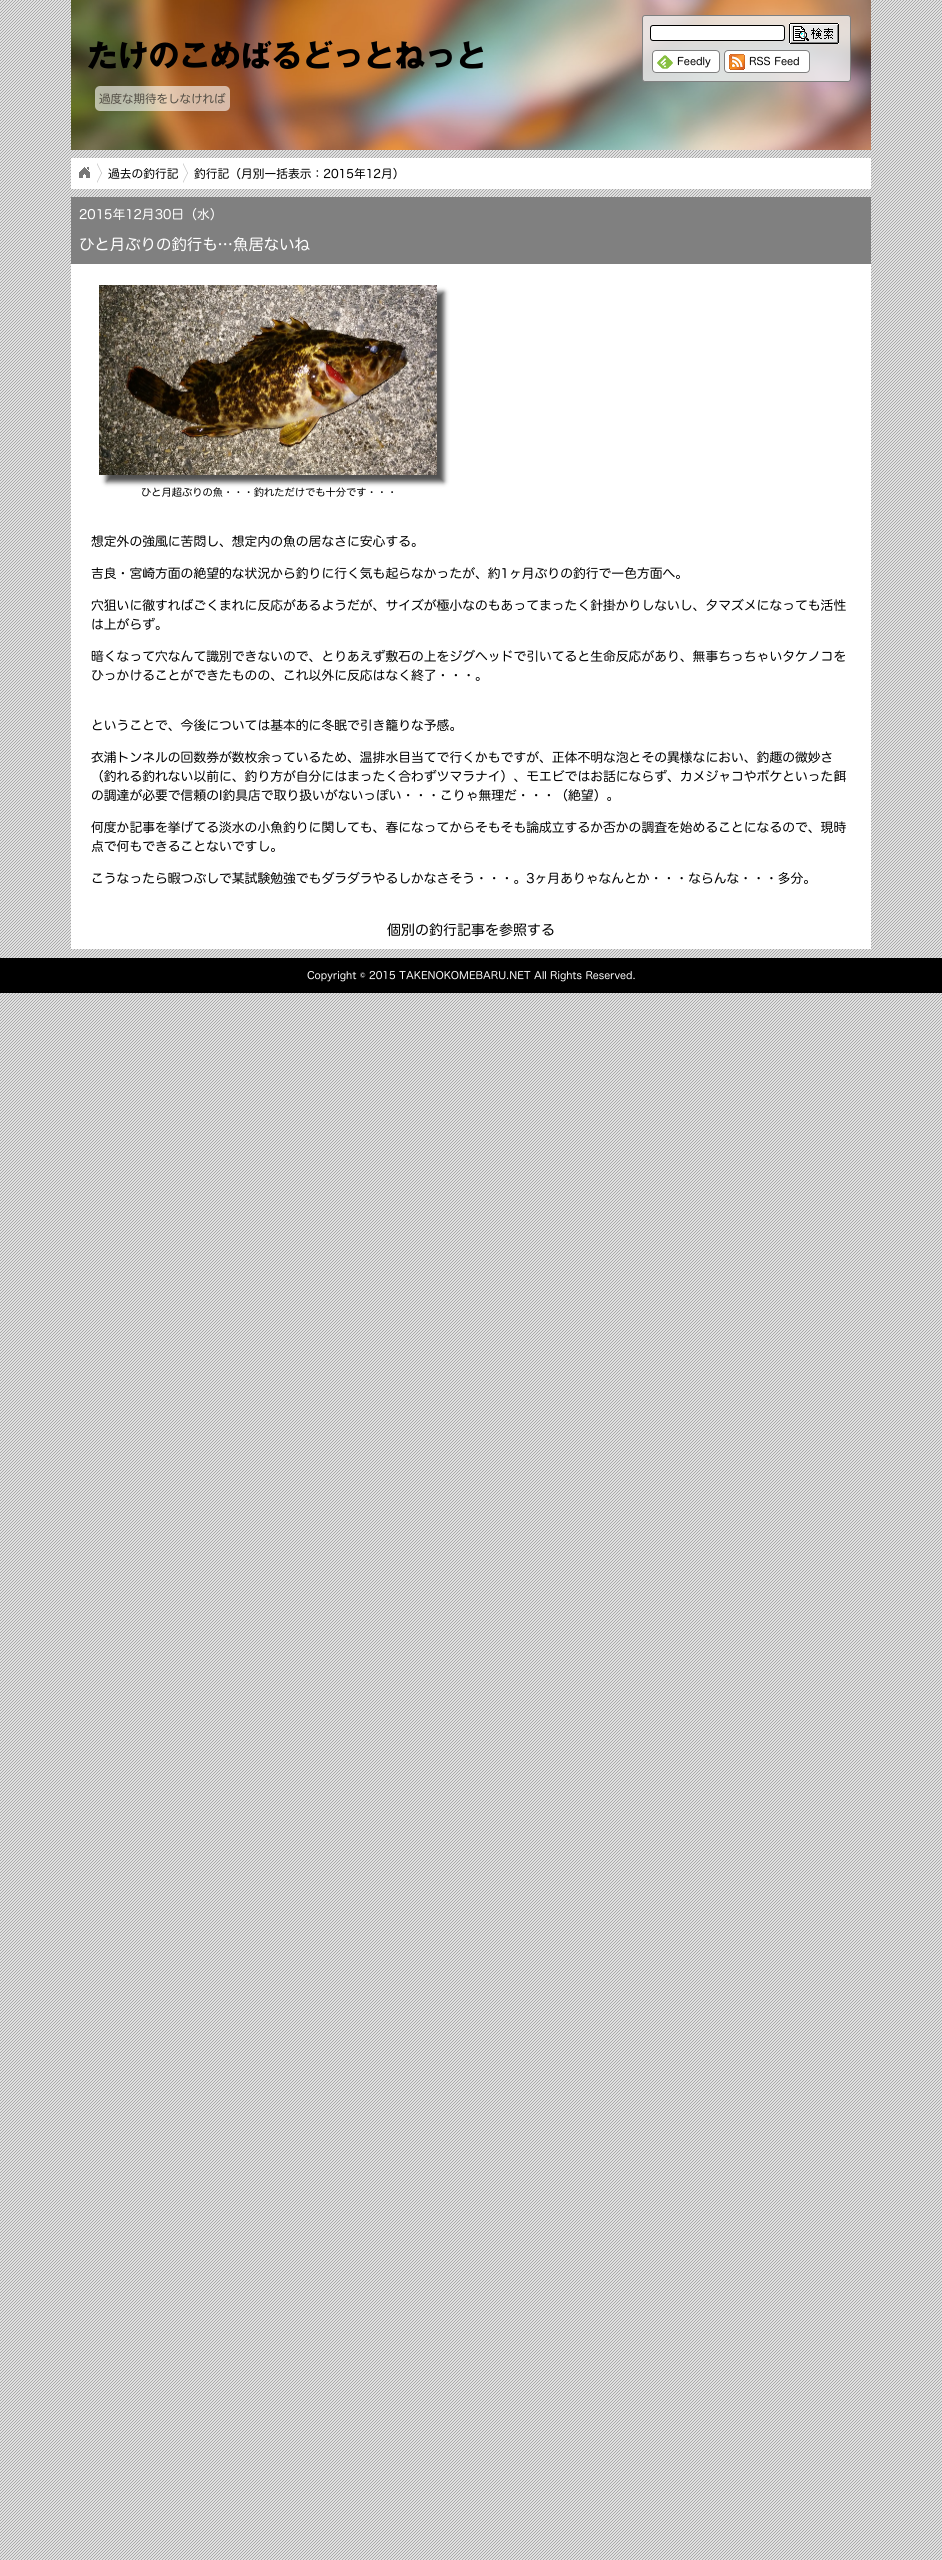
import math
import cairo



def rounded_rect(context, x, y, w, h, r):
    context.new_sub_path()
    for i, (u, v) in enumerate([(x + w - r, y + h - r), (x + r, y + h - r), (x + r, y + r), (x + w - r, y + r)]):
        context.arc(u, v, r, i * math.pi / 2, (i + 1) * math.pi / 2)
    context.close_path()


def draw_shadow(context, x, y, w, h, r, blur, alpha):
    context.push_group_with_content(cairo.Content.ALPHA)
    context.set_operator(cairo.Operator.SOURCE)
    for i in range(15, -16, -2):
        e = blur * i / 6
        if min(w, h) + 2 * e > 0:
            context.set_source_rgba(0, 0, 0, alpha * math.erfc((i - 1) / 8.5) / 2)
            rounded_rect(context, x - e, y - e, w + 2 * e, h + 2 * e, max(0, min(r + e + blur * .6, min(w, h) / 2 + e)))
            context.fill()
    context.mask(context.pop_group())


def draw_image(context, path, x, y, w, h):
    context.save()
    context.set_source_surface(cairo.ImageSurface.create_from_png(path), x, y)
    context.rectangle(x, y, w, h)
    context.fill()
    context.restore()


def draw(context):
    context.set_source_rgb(1, 1, 1)
    context.paint()
    draw_image(context, "images/1.png", 0, 0, 942, 2560)
    draw_image(context, "images/2.png", 71, 0, 800, 150)
    context.set_source_rgba(240 / 255, 240 / 255, 240 / 255, 0.8)
    rounded_rect(context, 642.5, 15.5, 208, 66, 2.5)
    context.fill_preserve()
    context.set_source_rgb(128 / 255, 128 / 255, 128 / 255)
    context.set_line_width(1)
    context.stroke()
    context.set_source_rgb(1, 1, 1)
    rounded_rect(context, 650.5, 25.5, 134, 15, 2.5)
    context.fill_preserve()
    context.set_source_rgb(0, 0, 0)
    context.stroke()
    draw_image(context, "images/3.png", 789, 23, 50, 21)
    context.set_source_rgb(1, 1, 1)
    rounded_rect(context, 652, 50, 68, 23, 4)
    context.fill()
    draw_image(context, "images/4.png", 657, 55, 16, 14)
    rounded_rect(context, 652.5, 50.5, 67, 22, 3.5)
    context.set_source_rgb(128 / 255, 128 / 255, 128 / 255)
    context.stroke()
    context.set_source_rgb(1, 1, 1)
    rounded_rect(context, 724, 50, 86, 23, 4)
    context.fill()
    draw_image(context, "images/5.png", 729, 54, 16, 16)
    rounded_rect(context, 724.5, 50.5, 85, 22, 3.5)
    context.set_source_rgb(128 / 255, 128 / 255, 128 / 255)
    context.stroke()
    context.set_source_rgba(1, 1, 1, 0.6)
    rounded_rect(context, 95, 86, 135, 25, 5)
    context.fill()
    context.set_source_rgb(1, 1, 1)
    context.rectangle(71, 158, 800, 31)
    context.fill()
    draw_image(context, "images/6.png", 97, 163, 5, 20)
    draw_image(context, "images/7.png", 79, 167, 11, 11)
    draw_image(context, "images/6.png", 183, 163, 5, 20)
    context.rectangle(71, 264, 800, 685)
    context.fill()
    context.set_source_rgb(128 / 255, 128 / 255, 128 / 255)
    context.rectangle(71, 197, 800, 67)
    context.fill()
    context.set_source_rgb(80 / 255, 80 / 255, 80 / 255)
    draw_shadow(context, 106, 292, 338, 190, 0, 2.5, 1)
    draw_image(context, "images/8.png", 99, 285, 338, 190)
    context.set_source_rgb(0, 0, 0)
    context.rectangle(0, 958, 942, 35)
    context.fill()
    context.select_font_face("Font", cairo.FontSlant.NORMAL, cairo.FontWeight.BOLD)
    context.set_font_size(30.75)
    context.move_to(87, 67)
    context.show_text("たけのこめばるどっとねっと")
    context.select_font_face("Font")
    context.set_font_size(10.5)
    context.move_to(677, 65)
    context.show_text("Feedly")
    context.move_to(749, 65)
    context.show_text("RSS Feed")
    context.set_font_size(11.5)
    context.set_source_rgb(82 / 255, 77 / 255, 68 / 255)
    context.move_to(99, 103)
    context.show_text("過度な期待をしなければ")
    context.set_font_size(11.75)
    context.set_source_rgb(0, 0, 0)
    context.move_to(108, 178)
    context.show_text("過去の釣行記")
    context.move_to(194, 178)
    context.show_text("釣行記（月別一括表示：2015年12月）")
    context.set_font_size(12.8)
    context.set_source_rgb(1, 1, 1)
    context.move_to(79, 219)
    context.show_text("2015年12月30日（水）")
    context.set_font_size(15.4)
    context.move_to(79, 250)
    context.show_text("ひと月ぶりの釣行も…魚居ないね")
    context.set_font_size(10.25)
    context.set_source_rgb(0, 0, 0)
    context.move_to(141, 496)
    context.show_text("ひと月超ぶりの魚・・・釣れただけでも十分です・・・")
    context.set_font_size(12.8)
    context.move_to(91, 546)
    context.show_text("想定外の強風に苦悶し、想定内の魚の居なさに安心する。")
    context.move_to(91, 578)
    context.show_text("吉良・宮崎方面の絶望的な状況から釣りに行く気も起らなかったが、約1ヶ月ぶりの釣行で一色方面へ。")
    context.move_to(91, 610)
    context.show_text("穴狙いに徹すればごくまれに反応があるようだが、サイズが極小なのもあってまったく針掛かりしないし、夕マズメになっても活性")
    context.move_to(91, 629)
    context.show_text("は上がらず。")
    context.move_to(91, 661)
    context.show_text("暗くなって穴なんて識別できないので、とりあえず敷石の上をジグヘッドで引いてると生命反応があり、無事ちっちゃいタケノコを")
    context.move_to(91, 680)
    context.show_text("ひっかけることができたものの、これ以外に反応はなく終了・・・。")
    context.move_to(91, 730)
    context.show_text("ということで、今後については基本的に冬眠で引き籠りな予感。")
    context.move_to(91, 762)
    context.show_text("衣浦トンネルの回数券が数枚余っているため、温排水目当てで行くかもですが、正体不明な泡とその異様なにおい、釣趣の微妙さ")
    context.move_to(91, 781)
    context.show_text("（釣れる釣れない以前に、釣り方が自分にはまったく合わずツマラナイ）、モエビではお話にならず、カメジャコやボケといった餌")
    context.move_to(91, 800)
    context.show_text("の調達が必要で信頼のI釣具店で取り扱いがないっぽい・・・こりゃ無理だ・・・（絶望）。")
    context.move_to(91, 832)
    context.show_text("何度か記事を挙げてる淡水の小魚釣りに関しても、春になってからそもそも論成立するか否かの調査を始めることになるので、現時")
    context.move_to(91, 851)
    context.show_text("点で何もできることないですし。")
    context.move_to(91, 883)
    context.show_text("こうなったら暇つぶしで某試験勉強でもダラダラやるしかなさそう・・・。3ヶ月ありゃなんとか・・・ならんな・・・多分。")
    context.set_font_size(14)
    context.move_to(387, 935)
    context.show_text("個別の釣行記事を参照する")
    context.set_font_size(10.25)
    context.set_source_rgb(1, 1, 1)
    context.move_to(307, 979)
    context.show_text("Copyright © 2015 TAKENOKOMEBARU.NET All Rights Reserved.")


surface = cairo.ImageSurface(cairo.Format.RGB24, 942, 2560)
context = cairo.Context(surface)
options = cairo.FontOptions()
options.set_hint_metrics(cairo.HintMetrics.OFF)
options.set_hint_style(cairo.HintStyle.NONE)
context.set_font_options(options)
context.set_miter_limit(4)
draw(context)
surface.write_to_png("out.png")
